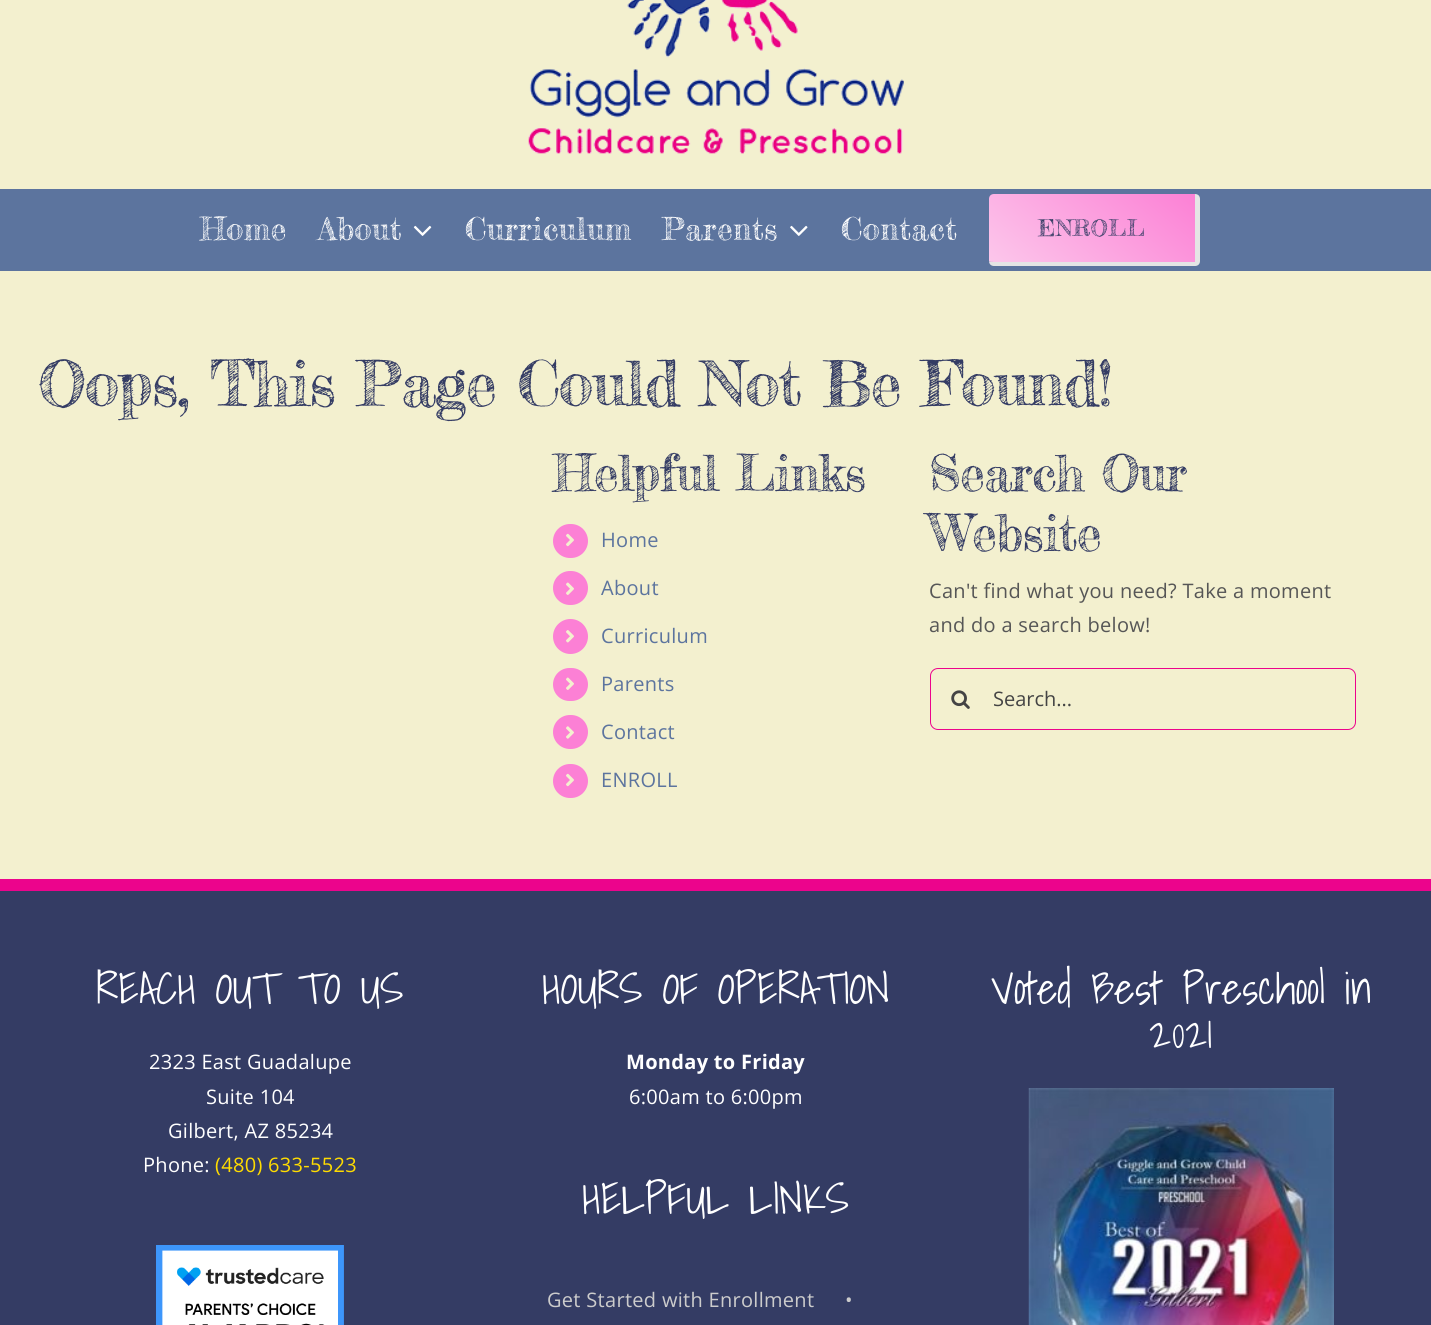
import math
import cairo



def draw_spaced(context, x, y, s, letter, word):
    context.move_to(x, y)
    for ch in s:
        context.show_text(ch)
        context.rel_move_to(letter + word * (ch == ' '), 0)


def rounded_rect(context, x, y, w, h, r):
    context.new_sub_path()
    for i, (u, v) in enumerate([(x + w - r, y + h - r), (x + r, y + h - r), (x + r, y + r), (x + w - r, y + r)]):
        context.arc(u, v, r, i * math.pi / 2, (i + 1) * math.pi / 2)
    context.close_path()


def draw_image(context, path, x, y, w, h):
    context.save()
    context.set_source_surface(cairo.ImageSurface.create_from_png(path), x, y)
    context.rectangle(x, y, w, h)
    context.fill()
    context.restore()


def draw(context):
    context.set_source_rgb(243 / 255, 240 / 255, 207 / 255)
    context.paint()
    draw_image(context, "images/1.png", 528, 0, 376, 154)
    context.set_source_rgb(92 / 255, 116 / 255, 158 / 255)
    context.rectangle(0, 189, 1431, 82)
    context.fill()
    draw_image(context, "images/2.png", 413, 225, 19, 11)
    draw_image(context, "images/3.png", 790, 225, 18, 11)
    gradient = cairo.LinearGradient(1151, 157, 1032, 299)
    gradient.add_color_stop_rgba(0, 252 / 255, 128 / 255, 213 / 255, 1)
    gradient.add_color_stop_rgba(1, 252 / 255, 199 / 255, 235 / 255, 1)
    context.set_source(gradient)
    context.new_path()
    context.move_to(994, 194)
    context.line_to(1195, 194)
    context.line_to(1195, 262)
    context.line_to(994, 262)
    context.curve_to(991, 262, 989, 262, 989, 261)
    context.line_to(989, 199)
    context.curve_to(989, 196, 991, 194, 994, 194)
    context.close_path()
    context.fill()
    context.set_source_rgb(229 / 255, 229 / 255, 229 / 255)
    context.set_fill_rule(cairo.FillRule.EVEN_ODD)
    context.new_path()
    context.move_to(994, 194)
    context.line_to(1195, 194)
    context.curve_to(1198, 194, 1200, 196, 1200, 199)
    context.line_to(1200, 261)
    context.curve_to(1200, 264, 1198, 266, 1195, 266)
    context.line_to(994, 266)
    context.curve_to(991, 266, 989, 264, 989, 261)
    context.line_to(989, 199)
    context.curve_to(989, 196, 991, 194, 994, 194)
    context.close_path()
    context.move_to(994, 194)
    context.line_to(1195, 194)
    context.line_to(1195, 262)
    context.line_to(994, 262)
    context.curve_to(991, 262, 989, 262, 989, 261)
    context.line_to(989, 199)
    context.curve_to(989, 196, 991, 194, 994, 194)
    context.close_path()
    context.fill()
    context.set_source_rgb(252 / 255, 128 / 255, 213 / 255)
    rounded_rect(context, 553, 524, 35, 34, 17)
    context.fill()
    draw_image(context, "images/4.png", 566, 533, 8, 14)
    rounded_rect(context, 553, 571, 35, 34, 17)
    context.fill()
    draw_image(context, "images/5.png", 566, 582, 8, 13)
    context.arc(570.5, 636.5, 17.5, 0, 2 * math.pi)
    context.fill()
    draw_image(context, "images/6.png", 566, 630, 8, 13)
    rounded_rect(context, 553, 668, 35, 33, 16.5)
    context.fill()
    draw_image(context, "images/5.png", 566, 677, 8, 13)
    rounded_rect(context, 553, 715, 35, 34, 17)
    context.fill()
    draw_image(context, "images/7.png", 566, 726, 8, 13)
    rounded_rect(context, 553, 764, 35, 34, 17)
    context.fill()
    draw_image(context, "images/4.png", 566, 773, 8, 14)
    rounded_rect(context, 930.5, 668.5, 425, 61, 7.5)
    context.set_source_rgb(236 / 255, 4 / 255, 140 / 255)
    context.set_line_width(1)
    context.stroke()
    draw_image(context, "images/8.png", 951, 690, 19, 19)
    context.set_source_rgb(52 / 255, 60 / 255, 100 / 255)
    context.rectangle(0, 891, 1431, 434)
    context.fill()
    context.set_source_rgb(236 / 255, 4 / 255, 140 / 255)
    context.rectangle(0, 879, 1431, 12)
    context.fill()
    draw_image(context, "images/9.png", 156, 1245, 188, 80)
    draw_image(context, "images/10.png", 1028, 1088, 306, 237)
    context.select_font_face("Fredericka the Great")
    context.set_font_size(31.25)
    context.set_source_rgb(1, 1, 1)
    draw_spaced(context, 200, 240, "Home", 0.5, 0)
    draw_spaced(context, 318, 240, "About", 0.5, 0)
    draw_spaced(context, 465, 240, "Curriculum", 0.5, 0)
    draw_spaced(context, 662, 240, "Parents", 0.5, 0)
    draw_spaced(context, 841, 240, "Contact", 0.5, 0)
    context.set_font_size(22.5)
    context.set_source_rgb(52 / 255, 60 / 255, 100 / 255)
    draw_spaced(context, 1038, 236, "ENROLL", 0.5, 0)
    context.set_font_size(62.5)
    draw_spaced(context, 38, 406, "Oops, This Page Could Not Be Found!", -0.95, 0)
    context.set_font_size(50)
    draw_spaced(context, 553, 491, "Helpful Links", -0.75, 0)
    context.select_font_face("Open Sans")
    context.set_font_size(20)
    context.set_source_rgb(92 / 255, 116 / 255, 158 / 255)
    draw_spaced(context, 601, 547, "Home", 0.3, 0)
    draw_spaced(context, 601, 595, "About", 0.3, 0)
    draw_spaced(context, 601, 643, "Curriculum", 0.3, 0)
    draw_spaced(context, 601, 691, "Parents", 0.3, 0)
    draw_spaced(context, 601, 739, "Contact", 0.3, 0)
    draw_spaced(context, 601, 787, "ENROLL", 0.3, 0)
    context.select_font_face("Fredericka the Great")
    context.set_font_size(50)
    context.set_source_rgb(52 / 255, 60 / 255, 100 / 255)
    draw_spaced(context, 929, 491, "Search Our", -0.75, 0)
    draw_spaced(context, 929, 551, "Website", -0.75, 0)
    context.select_font_face("Open Sans")
    context.set_font_size(20)
    context.set_source_rgb(86 / 255, 86 / 255, 86 / 255)
    draw_spaced(context, 929, 598, "Can't find what you need? Take a moment", 0.3, 0)
    draw_spaced(context, 929, 632, "and do a search below!", 0.3, 0)
    context.set_source_rgb(68 / 255, 68 / 255, 68 / 255)
    context.move_to(993, 706)
    context.show_text("Search...")
    context.select_font_face("Shadows Into Light Light")
    context.set_font_size(43.75)
    context.set_source_rgb(1, 1, 1)
    context.move_to(96, 1004)
    context.show_text("REACH OUT TO US")
    context.select_font_face("Open Sans")
    context.set_font_size(20)
    draw_spaced(context, 149, 1069, "2323 East Guadalupe", 0.3, 0)
    draw_spaced(context, 206, 1104, "Suite 104", 0.3, 0)
    draw_spaced(context, 168, 1138, "Gilbert, AZ 85234", 0.3, 0)
    draw_spaced(context, 143, 1172, "Phone:", 0.3, 0)
    context.set_source_rgb(1, 220 / 255, 0)
    draw_spaced(context, 215, 1172, "(480) 633-5523", 0.3, 0)
    context.select_font_face("Shadows Into Light Light")
    context.set_font_size(43.75)
    context.set_source_rgb(1, 1, 1)
    context.move_to(542, 1004)
    context.show_text("HOURS OF OPERATION")
    context.select_font_face("Open Sans", cairo.FontSlant.NORMAL, cairo.FontWeight.BOLD)
    context.set_font_size(20)
    draw_spaced(context, 626, 1069, "Monday to Friday", 0.3, 0)
    context.select_font_face("Open Sans")
    draw_spaced(context, 629, 1104, "6:00am to 6:00pm", 0.3, 0)
    context.select_font_face("Shadows Into Light Light")
    context.set_font_size(43.75)
    context.move_to(582, 1214)
    context.show_text("HELPFUL LINKS")
    context.select_font_face("Open Sans")
    context.set_font_size(20)
    context.set_source_rgb(204 / 255, 204 / 255, 204 / 255)
    draw_spaced(context, 547, 1307, "Get Started with Enrollment", 0.3, 0)
    draw_spaced(context, 845, 1307, "•", 0.3, 0)
    context.select_font_face("Shadows Into Light Light")
    context.set_font_size(43.75)
    context.set_source_rgb(1, 1, 1)
    context.move_to(991, 1004)
    context.show_text("Voted Best Preschool in")
    context.move_to(1149, 1048)
    context.show_text("2021")


surface = cairo.ImageSurface(cairo.Format.RGB24, 1431, 1325)
context = cairo.Context(surface)
options = cairo.FontOptions()
options.set_hint_metrics(cairo.HintMetrics.OFF)
options.set_hint_style(cairo.HintStyle.NONE)
context.set_font_options(options)
context.set_miter_limit(4)
draw(context)
surface.write_to_png("out.png")
